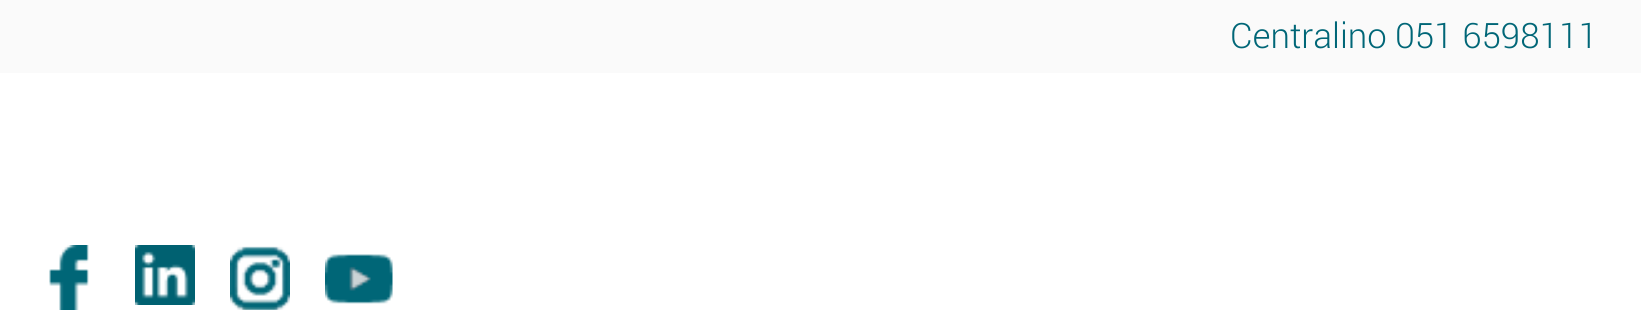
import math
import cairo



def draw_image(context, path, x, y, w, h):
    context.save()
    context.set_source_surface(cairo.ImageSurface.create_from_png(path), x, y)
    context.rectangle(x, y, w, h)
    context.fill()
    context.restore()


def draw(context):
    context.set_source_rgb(1, 1, 1)
    context.paint()
    context.set_source_rgb(250 / 255, 250 / 255, 250 / 255)
    context.rectangle(0, 0, 1641, 73)
    context.fill()
    draw_image(context, "images/1.png", 49, 245, 40, 65)
    draw_image(context, "images/2.png", 135, 245, 60, 60)
    draw_image(context, "images/3.png", 230, 246, 60, 64)
    draw_image(context, "images/4.png", 325, 254, 68, 50)
    context.select_font_face("Roboto Light")
    context.set_font_size(35)
    context.set_source_rgb(0, 102 / 255, 119 / 255)
    context.move_to(1230, 48)
    context.show_text("Centralino 051 6598111")


surface = cairo.ImageSurface(cairo.Format.RGB24, 1641, 310)
context = cairo.Context(surface)
options = cairo.FontOptions()
options.set_hint_metrics(cairo.HintMetrics.OFF)
options.set_hint_style(cairo.HintStyle.NONE)
context.set_font_options(options)
context.set_miter_limit(4)
draw(context)
surface.write_to_png("out.png")
